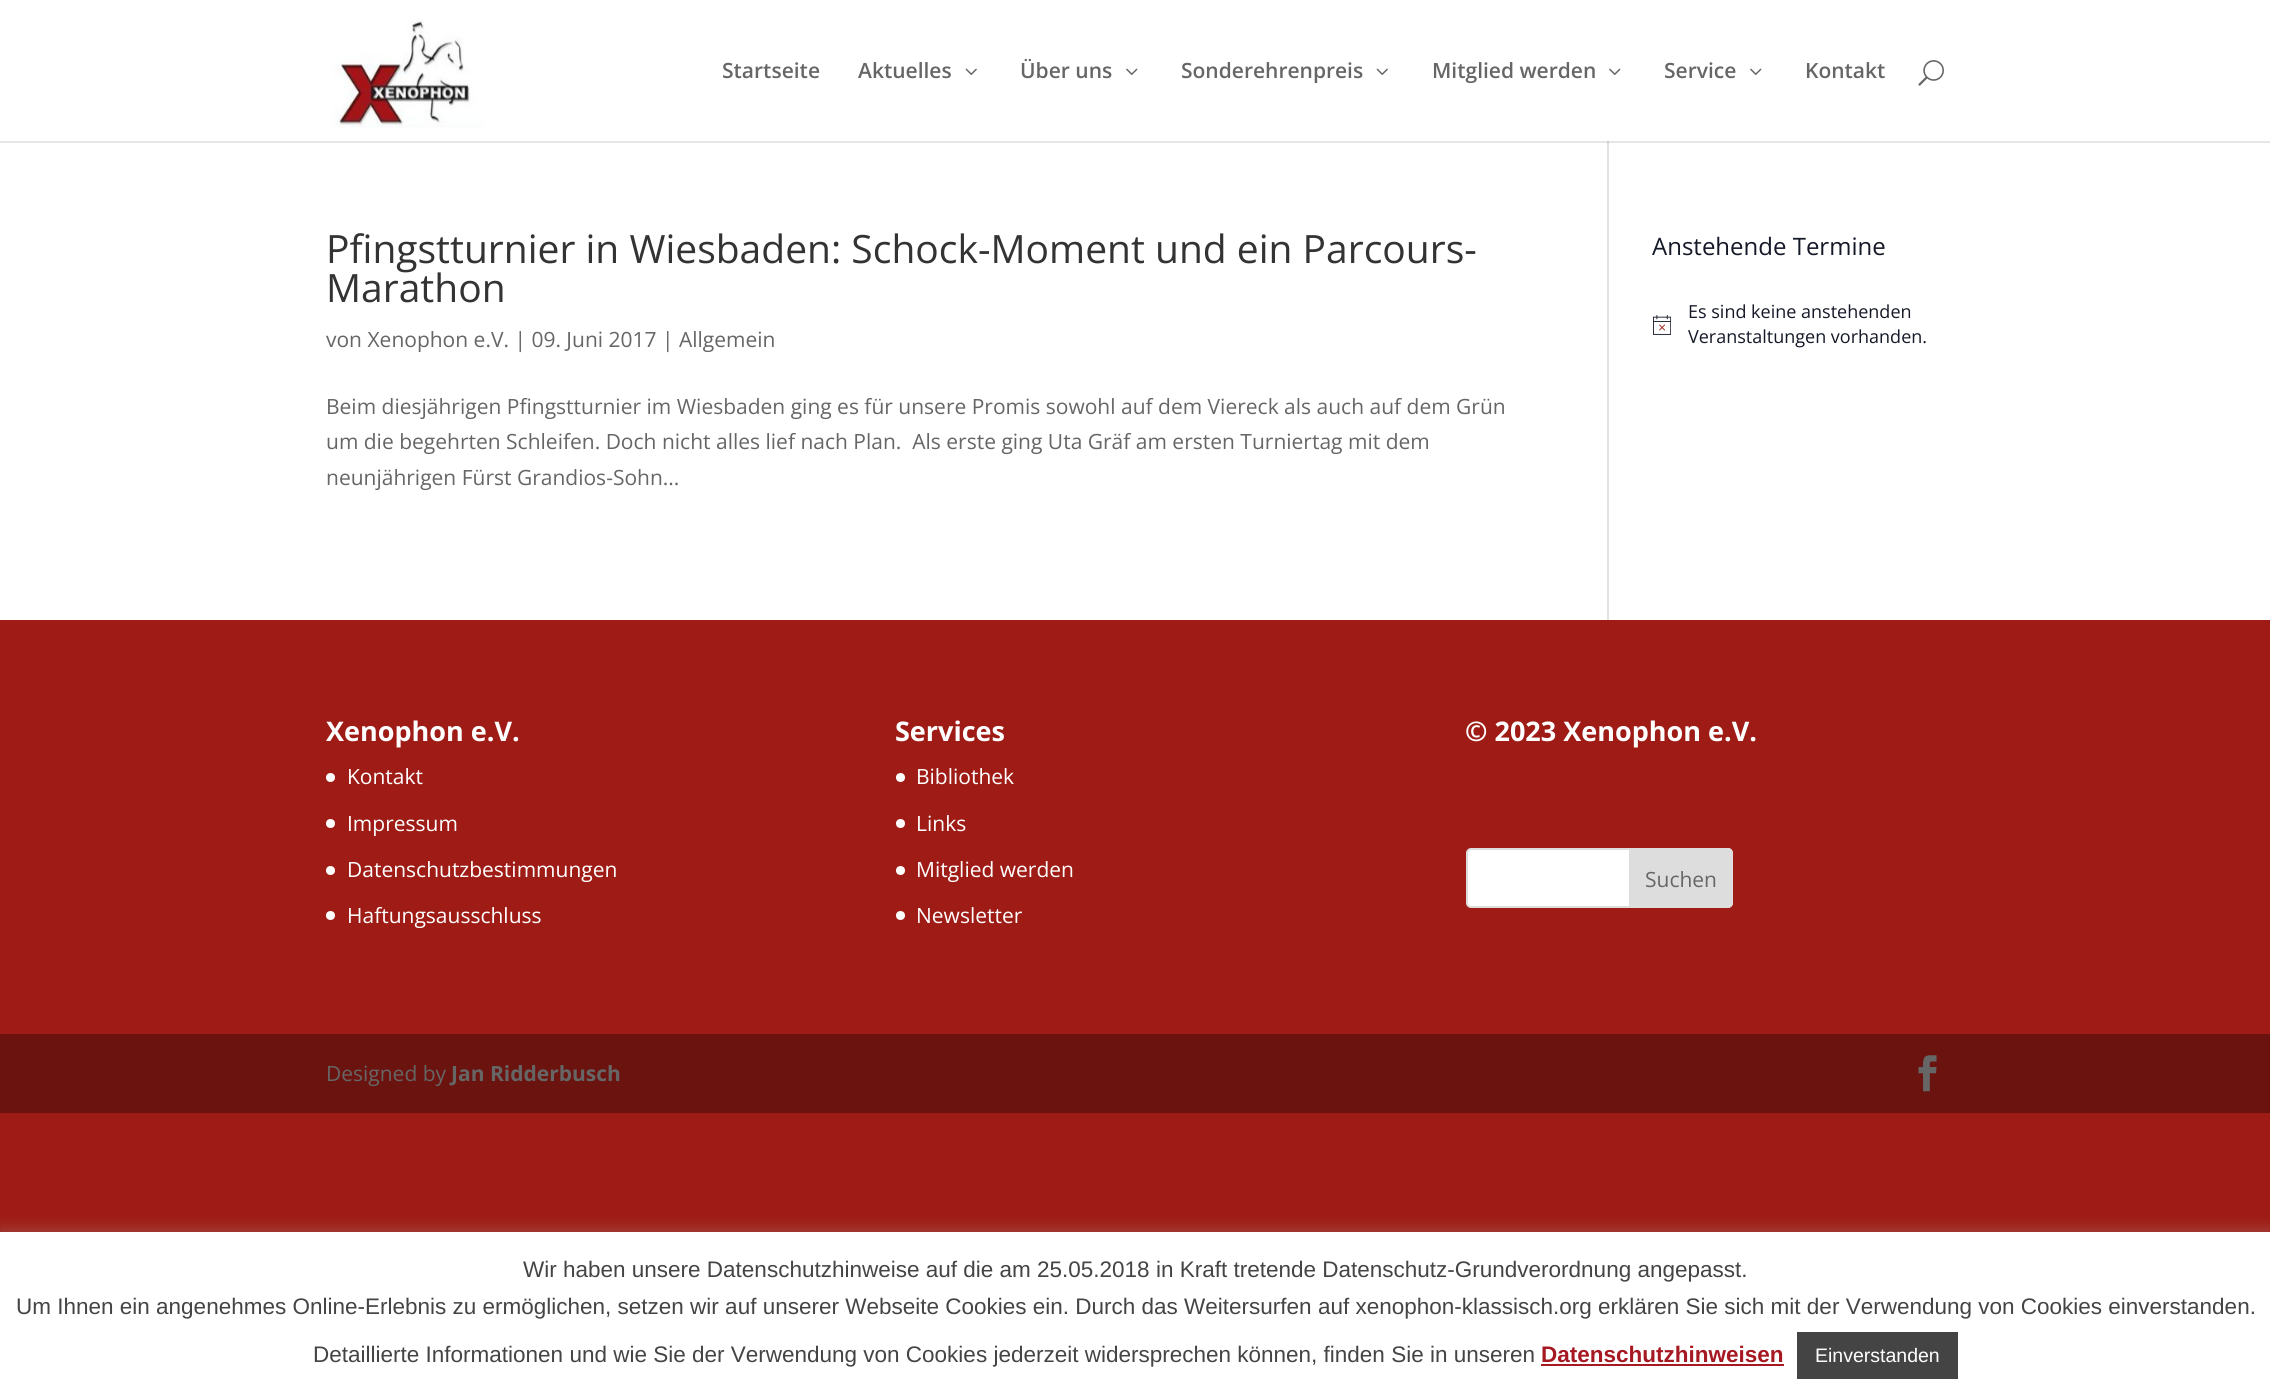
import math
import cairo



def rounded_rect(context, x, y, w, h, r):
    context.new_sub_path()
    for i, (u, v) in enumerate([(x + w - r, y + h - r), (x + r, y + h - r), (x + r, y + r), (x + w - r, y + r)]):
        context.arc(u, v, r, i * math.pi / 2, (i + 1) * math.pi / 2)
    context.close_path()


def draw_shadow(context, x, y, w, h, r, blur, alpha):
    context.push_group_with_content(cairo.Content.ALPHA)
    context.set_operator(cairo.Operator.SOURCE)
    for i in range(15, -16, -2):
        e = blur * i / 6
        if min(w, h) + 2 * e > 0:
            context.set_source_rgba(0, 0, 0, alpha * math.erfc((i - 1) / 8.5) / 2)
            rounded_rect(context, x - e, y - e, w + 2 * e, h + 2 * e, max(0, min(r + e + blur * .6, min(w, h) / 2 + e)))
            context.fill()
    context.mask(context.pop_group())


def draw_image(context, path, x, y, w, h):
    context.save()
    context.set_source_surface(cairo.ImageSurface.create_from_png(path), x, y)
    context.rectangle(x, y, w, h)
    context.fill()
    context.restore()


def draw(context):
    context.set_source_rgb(158 / 255, 28 / 255, 21 / 255)
    context.paint()
    context.set_source_rgb(1, 1, 1)
    context.rectangle(0, 0, 2270, 141)
    context.fill()
    draw_image(context, "images/1.png", 332, 19, 151, 109)
    draw_image(context, "images/2.png", 965, 68, 12, 7)
    draw_image(context, "images/3.png", 1126, 68, 12, 7)
    draw_image(context, "images/2.png", 1376, 68, 12, 7)
    draw_image(context, "images/3.png", 1609, 68, 12, 7)
    draw_image(context, "images/3.png", 1750, 68, 12, 7)
    draw_image(context, "images/4.png", 1918, 60, 26, 26)
    context.rectangle(0, 143, 2270, 477)
    context.fill()
    context.set_source_rgb(230 / 255, 230 / 255, 230 / 255)
    context.rectangle(0, 141, 2270, 2)
    context.fill()
    context.set_source_rgb(226 / 255, 226 / 255, 226 / 255)
    context.rectangle(1607, 141, 2, 479)
    context.fill()
    context.set_source_rgb(203 / 255, 203 / 255, 203 / 255)
    context.rectangle(1607, 141, 2, 2)
    context.fill()
    draw_image(context, "images/5.png", 1653, 315, 18, 20)
    context.set_source_rgb(1, 1, 1)
    context.arc(330.5, 777.5, 4.5, 0, 2 * math.pi)
    context.fill()
    context.arc(330.5, 823.5, 4.5, 0, 2 * math.pi)
    context.fill()
    context.arc(330.5, 870.5, 4.5, 0, 2 * math.pi)
    context.fill()
    context.arc(330.5, 915.5, 4.5, 0, 2 * math.pi)
    context.fill()
    context.arc(900.5, 777.5, 4.5, 0, 2 * math.pi)
    context.fill()
    context.arc(900.5, 823.5, 4.5, 0, 2 * math.pi)
    context.fill()
    context.arc(900.5, 870.5, 4.5, 0, 2 * math.pi)
    context.fill()
    context.arc(900.5, 915.5, 4.5, 0, 2 * math.pi)
    context.fill()
    rounded_rect(context, 1467, 849, 265, 58, 4)
    context.fill_preserve()
    context.set_source_rgb(221 / 255, 221 / 255, 221 / 255)
    context.stroke()
    context.new_path()
    context.move_to(1630, 849)
    context.line_to(1728, 849)
    context.curve_to(1730, 849, 1732, 851, 1732, 853)
    context.line_to(1732, 903)
    context.curve_to(1732, 905, 1730, 907, 1728, 907)
    context.line_to(1630, 907)
    context.close_path()
    context.fill_preserve()
    context.stroke()
    context.set_source_rgb(107 / 255, 19 / 255, 14 / 255)
    context.rectangle(0, 1034, 2270, 79)
    context.fill()
    draw_image(context, "images/6.png", 1918, 1055, 19, 37)
    context.set_source_rgb(172 / 255, 171 / 255, 171 / 255)
    draw_shadow(context, 0, 1230, 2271, 165, 0, 7.5, 0.3)
    context.set_source_rgb(1, 1, 1)
    context.rectangle(0, 1232, 2270, 164)
    context.fill()
    context.set_source_rgb(166 / 255, 25 / 255, 34 / 255)
    context.rectangle(1541, 1364, 243, 2)
    context.fill()
    context.set_source_rgb(68 / 255, 68 / 255, 68 / 255)
    context.rectangle(1797, 1332, 161, 47)
    context.fill()
    context.select_font_face("Open Sans SemiBold")
    context.set_font_size(21)
    context.set_source_rgb(102 / 255, 102 / 255, 102 / 255)
    context.move_to(722, 78)
    context.show_text("Startseite")
    context.move_to(858, 78)
    context.show_text("Aktuelles")
    context.move_to(1020, 78)
    context.show_text("Über uns")
    context.move_to(1181, 78)
    context.show_text("Sonderehrenpreis")
    context.move_to(1432, 78)
    context.show_text("Mitglied werden")
    context.move_to(1664, 78)
    context.show_text("Service")
    context.move_to(1805, 78)
    context.show_text("Kontakt")
    context.select_font_face("Open Sans")
    context.set_font_size(39)
    context.set_source_rgb(51 / 255, 51 / 255, 51 / 255)
    context.move_to(326, 263)
    context.show_text("Pfingstturnier in Wiesbaden: Schock-Moment und ein Parcours-")
    context.move_to(326, 302)
    context.show_text("Marathon")
    context.set_font_size(21)
    context.set_source_rgb(102 / 255, 102 / 255, 102 / 255)
    context.move_to(326, 347)
    context.show_text("von Xenophon e.V. | 09. Juni 2017 | Allgemein")
    context.move_to(326, 414)
    context.show_text("Beim diesjährigen Pfingstturnier im Wiesbaden ging es für unsere Promis sowohl auf dem Viereck als auch auf dem Grün")
    context.move_to(326, 449)
    context.show_text("um die begehrten Schleifen. Doch nicht alles lief nach Plan.  Als erste ging Uta Gräf am ersten Turniertag mit dem")
    context.move_to(326, 485)
    context.show_text("neunjährigen Fürst Grandios-Sohn...")
    context.set_font_size(24)
    context.set_source_rgb(20 / 255, 24 / 255, 39 / 255)
    context.move_to(1652, 255)
    context.show_text("Anstehende Termine")
    context.set_font_size(18)
    context.move_to(1688, 318)
    context.show_text("Es sind keine anstehenden")
    context.move_to(1688, 343)
    context.show_text("Veranstaltungen vorhanden.")
    context.select_font_face("Open Sans", cairo.FontSlant.NORMAL, cairo.FontWeight.BOLD)
    context.set_font_size(27)
    context.set_source_rgb(1, 1, 1)
    context.move_to(326, 741)
    context.show_text("Xenophon e.V.")
    context.select_font_face("Open Sans")
    context.set_font_size(21)
    context.move_to(347, 784)
    context.show_text("Kontakt")
    context.move_to(347, 831)
    context.show_text("Impressum")
    context.move_to(347, 877)
    context.show_text("Datenschutzbestimmungen")
    context.move_to(347, 923)
    context.show_text("Haftungsausschluss")
    context.select_font_face("Open Sans", cairo.FontSlant.NORMAL, cairo.FontWeight.BOLD)
    context.set_font_size(27)
    context.move_to(895, 741)
    context.show_text("Services")
    context.select_font_face("Open Sans")
    context.set_font_size(21)
    context.move_to(916, 784)
    context.show_text("Bibliothek")
    context.move_to(916, 831)
    context.show_text("Links")
    context.move_to(916, 877)
    context.show_text("Mitglied werden")
    context.move_to(916, 923)
    context.show_text("Newsletter")
    context.select_font_face("Open Sans", cairo.FontSlant.NORMAL, cairo.FontWeight.BOLD)
    context.set_font_size(27)
    context.move_to(1465, 741)
    context.show_text("© 2023 Xenophon e.V.")
    context.select_font_face("Open Sans")
    context.set_font_size(21)
    context.set_source_rgb(102 / 255, 102 / 255, 102 / 255)
    context.move_to(1645, 887)
    context.show_text("Suchen")
    context.move_to(326, 1081)
    context.show_text("Designed by")
    context.select_font_face("Open Sans", cairo.FontSlant.NORMAL, cairo.FontWeight.BOLD)
    context.move_to(451, 1081)
    context.show_text("Jan Ridderbusch")
    context.select_font_face("Liberation Sans")
    context.set_font_size(22.5)
    context.set_source_rgb(68 / 255, 68 / 255, 68 / 255)
    context.move_to(523, 1277)
    context.show_text("Wir haben unsere Datenschutzhinweise auf die am 25.05.2018 in Kraft tretende Datenschutz-Grundverordnung angepasst.")
    context.move_to(16, 1314)
    context.show_text("Um Ihnen ein angenehmes Online-Erlebnis zu ermöglichen, setzen wir auf unserer Webseite Cookies ein. Durch das Weitersurfen auf xenophon-klassisch.org erklären Sie sich mit der Verwendung von Cookies einverstanden.")
    context.move_to(313, 1362)
    context.show_text("Detaillierte Informationen und wie Sie der Verwendung von Cookies jederzeit widersprechen können, finden Sie in unseren")
    context.select_font_face("Liberation Sans", cairo.FontSlant.NORMAL, cairo.FontWeight.BOLD)
    context.set_source_rgb(166 / 255, 25 / 255, 34 / 255)
    context.move_to(1541, 1362)
    context.show_text("Datenschutzhinweisen")
    context.select_font_face("Liberation Sans")
    context.set_font_size(19.5)
    context.set_source_rgb(1, 1, 1)
    context.move_to(1815, 1362)
    context.show_text("Einverstanden")


surface = cairo.ImageSurface(cairo.Format.RGB24, 2270, 1396)
context = cairo.Context(surface)
options = cairo.FontOptions()
options.set_hint_metrics(cairo.HintMetrics.OFF)
options.set_hint_style(cairo.HintStyle.NONE)
context.set_font_options(options)
context.set_miter_limit(4)
draw(context)
surface.write_to_png("out.png")
